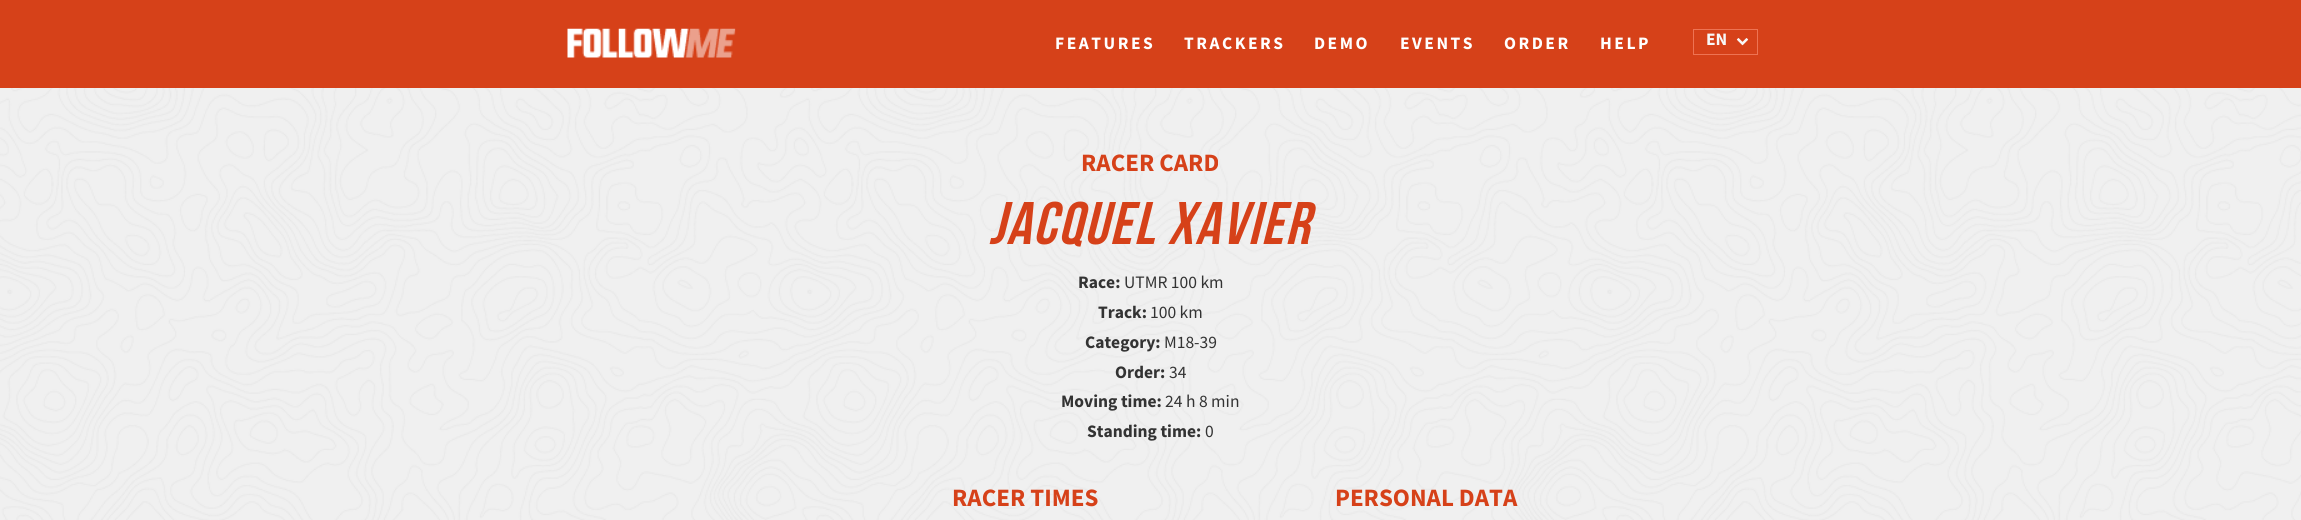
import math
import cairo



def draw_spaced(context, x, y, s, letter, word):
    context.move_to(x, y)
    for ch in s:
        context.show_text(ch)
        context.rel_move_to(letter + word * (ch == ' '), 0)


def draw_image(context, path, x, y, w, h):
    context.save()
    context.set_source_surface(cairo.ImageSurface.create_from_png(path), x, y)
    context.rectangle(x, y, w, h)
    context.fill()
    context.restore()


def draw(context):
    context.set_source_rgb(1, 1, 1)
    context.paint()
    draw_image(context, "images/1.png", 0, 88, 2301, 432)
    context.set_source_rgb(214 / 255, 65 / 255, 25 / 255)
    context.rectangle(0, 0, 2301, 88)
    context.fill()
    draw_image(context, "images/2.png", 567, 28, 169, 30)
    context.rectangle(1693.5, 29.5, 64, 25)
    context.set_source_rgb(238 / 255, 115 / 255, 83 / 255)
    context.set_line_width(1)
    context.stroke()
    draw_image(context, "images/3.png", 1736, 38, 13, 8)
    context.select_font_face("Source Sans Pro", cairo.FontSlant.NORMAL, cairo.FontWeight.BOLD)
    context.set_font_size(17.5)
    context.set_source_rgb(1, 1, 1)
    draw_spaced(context, 1055, 49, "FEATURES", 2.5, 0)
    draw_spaced(context, 1184, 49, "TRACKERS", 2.5, 0)
    draw_spaced(context, 1314, 49, "DEMO", 2.5, 0)
    draw_spaced(context, 1400, 49, "EVENTS", 2.5, 0)
    draw_spaced(context, 1504, 49, "ORDER", 2.5, 0)
    draw_spaced(context, 1600, 49, "HELP", 2.5, 0)
    context.set_source_rgb(247 / 255, 247 / 255, 247 / 255)
    context.move_to(1706, 45)
    context.show_text("EN")
    context.set_font_size(25)
    context.set_source_rgb(214 / 255, 65 / 255, 25 / 255)
    context.move_to(1081, 171)
    context.show_text("RACER CARD")
    context.select_font_face("Bebas Neue", cairo.FontSlant.ITALIC)
    context.set_font_size(60)
    draw_spaced(context, 989, 244, "JACQUEL XAVIER", 2, 0)
    context.select_font_face("Source Sans Pro", cairo.FontSlant.NORMAL, cairo.FontWeight.BOLD)
    context.set_font_size(17.5)
    context.set_source_rgb(51 / 255, 51 / 255, 51 / 255)
    context.move_to(1078, 288)
    context.show_text("Race:")
    context.select_font_face("Source Sans Pro")
    context.move_to(1124, 288)
    context.show_text("UTMR 100 km")
    context.select_font_face("Source Sans Pro", cairo.FontSlant.NORMAL, cairo.FontWeight.BOLD)
    context.move_to(1098, 318)
    context.show_text("Track:")
    context.select_font_face("Source Sans Pro")
    context.move_to(1150, 318)
    context.show_text("100 km")
    context.select_font_face("Source Sans Pro", cairo.FontSlant.NORMAL, cairo.FontWeight.BOLD)
    context.move_to(1085, 348)
    context.show_text("Category:")
    context.select_font_face("Source Sans Pro")
    context.move_to(1164, 348)
    context.show_text("M18-39")
    context.select_font_face("Source Sans Pro", cairo.FontSlant.NORMAL, cairo.FontWeight.BOLD)
    context.move_to(1115, 378)
    context.show_text("Order:")
    context.select_font_face("Source Sans Pro")
    context.move_to(1169, 378)
    context.show_text("34")
    context.select_font_face("Source Sans Pro", cairo.FontSlant.NORMAL, cairo.FontWeight.BOLD)
    context.move_to(1061, 407)
    context.show_text("Moving time:")
    context.select_font_face("Source Sans Pro")
    context.move_to(1165, 407)
    context.show_text("24 h 8 min")
    context.select_font_face("Source Sans Pro", cairo.FontSlant.NORMAL, cairo.FontWeight.BOLD)
    context.move_to(1087, 437)
    context.show_text("Standing time:")
    context.select_font_face("Source Sans Pro")
    context.move_to(1205, 437)
    context.show_text("0")
    context.select_font_face("Source Sans Pro", cairo.FontSlant.NORMAL, cairo.FontWeight.BOLD)
    context.set_font_size(25)
    context.set_source_rgb(214 / 255, 65 / 255, 25 / 255)
    context.move_to(952, 506)
    context.show_text("RACER TIMES")
    context.move_to(1335, 506)
    context.show_text("PERSONAL DATA")


surface = cairo.ImageSurface(cairo.Format.RGB24, 2301, 520)
context = cairo.Context(surface)
options = cairo.FontOptions()
options.set_hint_metrics(cairo.HintMetrics.OFF)
options.set_hint_style(cairo.HintStyle.NONE)
context.set_font_options(options)
context.set_miter_limit(4)
draw(context)
surface.write_to_png("out.png")
